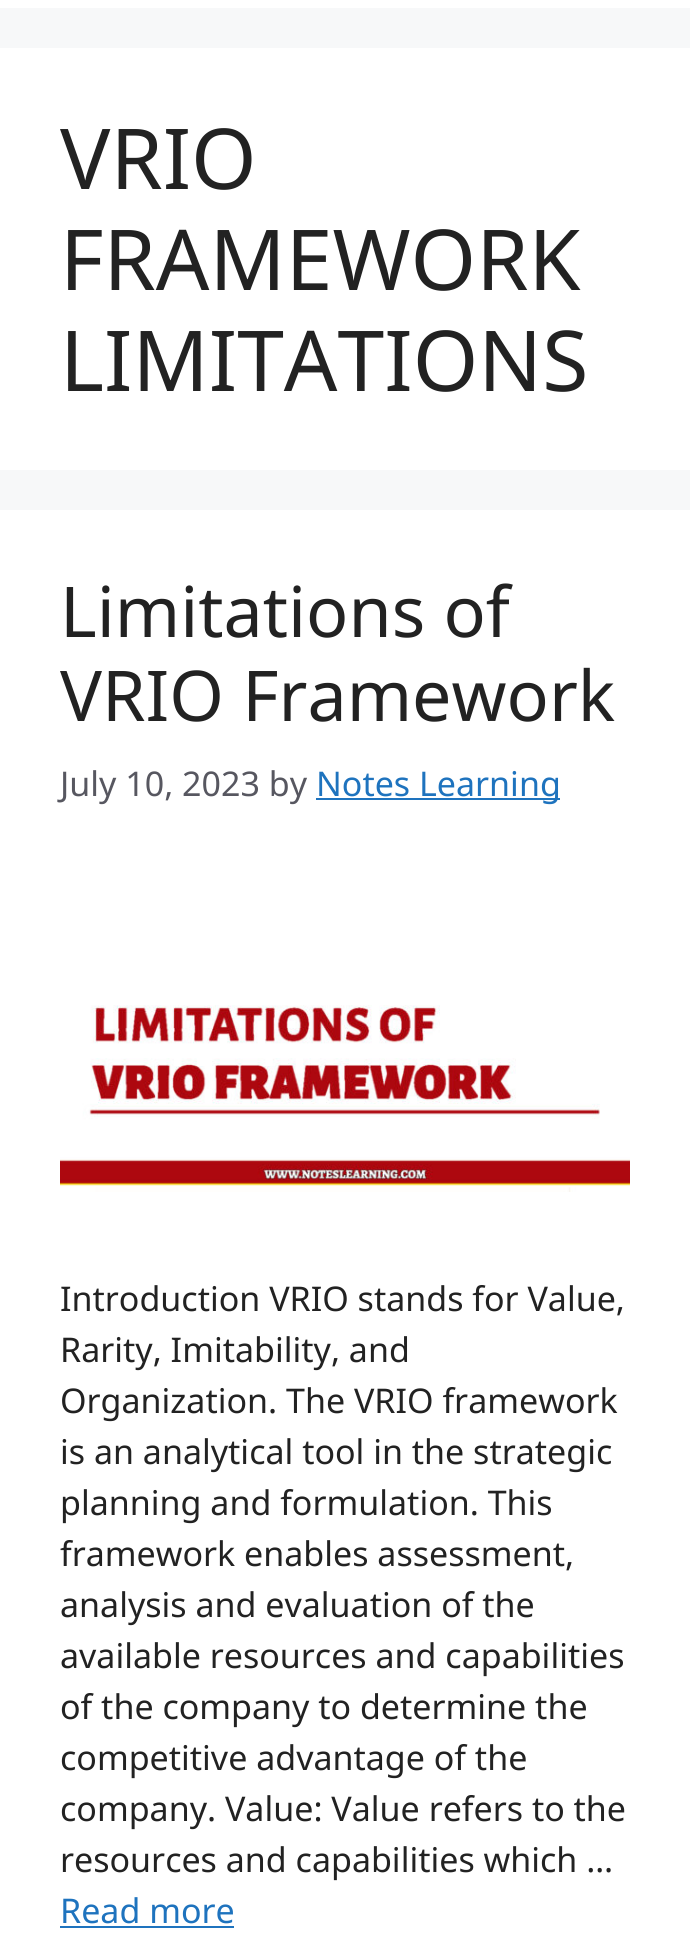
import math
import cairo



def draw_image(context, path, x, y, w, h):
    context.save()
    context.set_source_surface(cairo.ImageSurface.create_from_png(path), x, y)
    context.rectangle(x, y, w, h)
    context.fill()
    context.restore()


def draw(context):
    context.set_source_rgb(247 / 255, 248 / 255, 249 / 255)
    context.paint()
    context.set_source_rgb(1, 1, 1)
    context.rectangle(0, 0, 690, 8)
    context.fill()
    context.rectangle(0, 48, 690, 422)
    context.fill()
    context.rectangle(0, 510, 690, 1446)
    context.fill()
    context.set_source_rgb(30 / 255, 115 / 255, 190 / 255)
    context.rectangle(316, 798, 244, 2)
    context.fill()
    draw_image(context, "images/1.png", 60, 1005, 570, 187)
    context.rectangle(60, 1926, 174, 2)
    context.fill()
    context.select_font_face("Noto Sans")
    context.set_font_size(84)
    context.set_source_rgb(34 / 255, 34 / 255, 34 / 255)
    context.move_to(60, 189)
    context.show_text("VRIO")
    context.move_to(60, 290)
    context.show_text("FRAMEWORK")
    context.move_to(60, 391)
    context.show_text("LIMITATIONS")
    context.set_font_size(70)
    context.move_to(60, 637)
    context.show_text("Limitations of")
    context.move_to(60, 721)
    context.show_text("VRIO Framework")
    context.set_font_size(34)
    context.set_source_rgb(87 / 255, 87 / 255, 96 / 255)
    context.move_to(60, 796)
    context.show_text("July 10, 2023 by")
    context.set_source_rgb(30 / 255, 115 / 255, 190 / 255)
    context.move_to(316, 796)
    context.show_text("Notes Learning")
    context.set_source_rgb(34 / 255, 34 / 255, 34 / 255)
    context.move_to(60, 1311)
    context.show_text("Introduction VRIO stands for Value,")
    context.move_to(60, 1362)
    context.show_text("Rarity, Imitability, and")
    context.move_to(60, 1413)
    context.show_text("Organization. The VRIO framework")
    context.move_to(60, 1464)
    context.show_text("is an analytical tool in the strategic")
    context.move_to(60, 1515)
    context.show_text("planning and formulation. This")
    context.move_to(60, 1566)
    context.show_text("framework enables assessment,")
    context.move_to(60, 1617)
    context.show_text("analysis and evaluation of the")
    context.move_to(60, 1668)
    context.show_text("available resources and capabilities")
    context.move_to(60, 1719)
    context.show_text("of the company to determine the")
    context.move_to(60, 1770)
    context.show_text("competitive advantage of the")
    context.move_to(60, 1821)
    context.show_text("company. Value: Value refers to the")
    context.move_to(60, 1872)
    context.show_text("resources and capabilities which …")
    context.set_source_rgb(30 / 255, 115 / 255, 190 / 255)
    context.move_to(60, 1923)
    context.show_text("Read more")


surface = cairo.ImageSurface(cairo.Format.RGB24, 690, 1956)
context = cairo.Context(surface)
options = cairo.FontOptions()
options.set_hint_metrics(cairo.HintMetrics.OFF)
options.set_hint_style(cairo.HintStyle.NONE)
context.set_font_options(options)
context.set_miter_limit(4)
draw(context)
surface.write_to_png("out.png")
